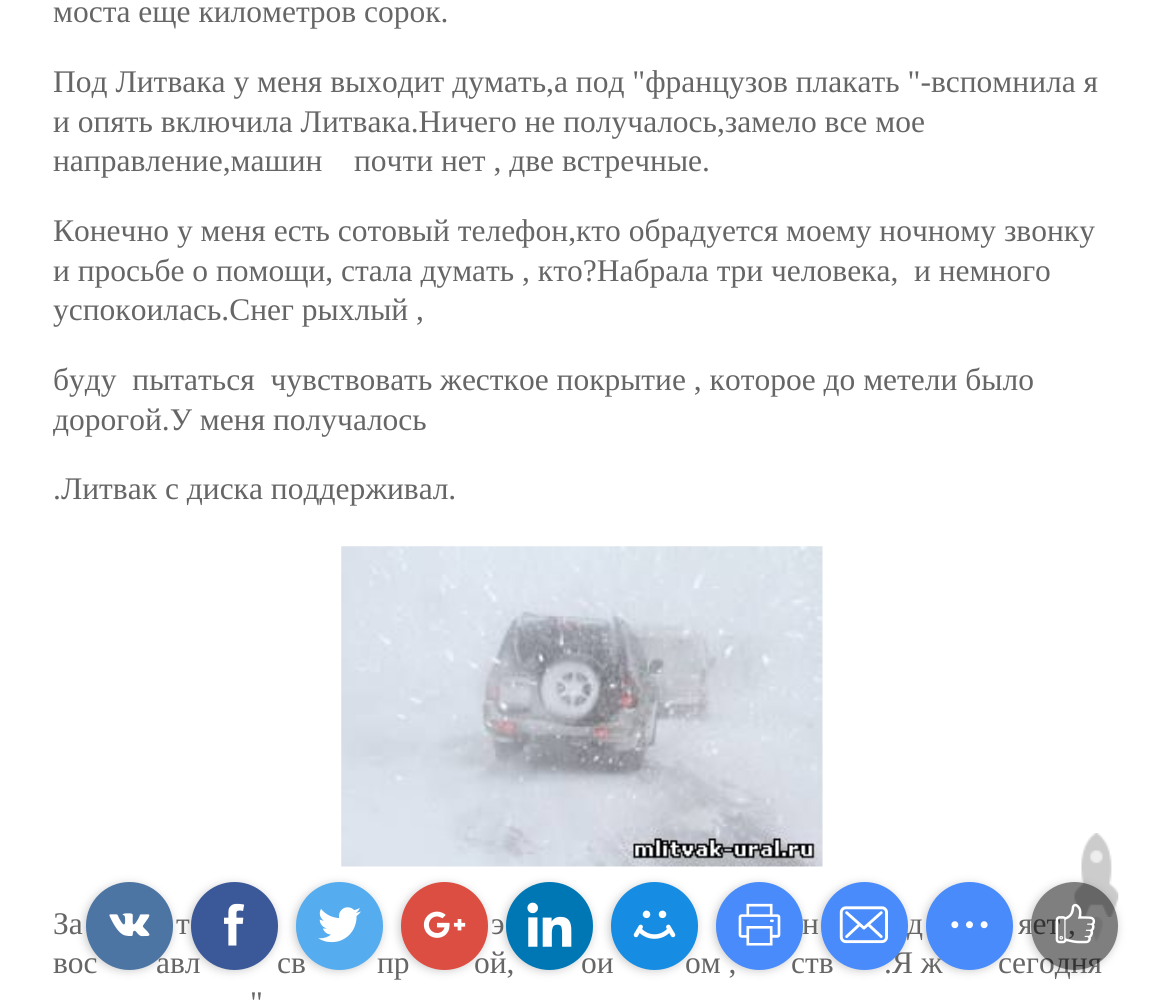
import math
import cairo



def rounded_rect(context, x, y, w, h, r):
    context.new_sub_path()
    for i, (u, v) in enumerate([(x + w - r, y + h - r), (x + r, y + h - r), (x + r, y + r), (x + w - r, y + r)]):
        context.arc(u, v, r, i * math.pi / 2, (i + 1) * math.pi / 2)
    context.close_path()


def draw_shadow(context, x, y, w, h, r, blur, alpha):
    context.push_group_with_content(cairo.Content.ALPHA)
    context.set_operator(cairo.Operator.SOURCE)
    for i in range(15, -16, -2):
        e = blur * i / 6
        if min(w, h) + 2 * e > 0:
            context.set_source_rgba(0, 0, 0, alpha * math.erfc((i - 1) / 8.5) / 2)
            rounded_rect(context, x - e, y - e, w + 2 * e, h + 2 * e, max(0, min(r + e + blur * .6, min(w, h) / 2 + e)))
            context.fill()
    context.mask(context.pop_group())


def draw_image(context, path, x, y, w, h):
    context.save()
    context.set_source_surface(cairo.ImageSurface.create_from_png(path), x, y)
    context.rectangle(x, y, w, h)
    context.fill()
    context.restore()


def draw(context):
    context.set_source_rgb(1, 1, 1)
    context.paint()
    draw_image(context, "images/1.png", 341, 546, 482, 321)
    draw_image(context, "images/2.png", 1074, 833, 45, 84)
    draw_image(context, "images/3.png", 1089, 917, 14, 25)
    context.set_source_rgb(0, 0, 0)
    draw_shadow(context, 84, 884, 88, 87, 43.5, 4.5, 0.2)
    draw_shadow(context, 189, 884, 88, 87, 43.5, 4.5, 0.2)
    draw_shadow(context, 294, 884, 88, 87, 43.5, 4.5, 0.2)
    draw_shadow(context, 399, 884, 88, 87, 43.5, 4.5, 0.2)
    draw_shadow(context, 504, 884, 88, 87, 43.5, 4.5, 0.2)
    draw_shadow(context, 609, 884, 88, 87, 43.5, 4.5, 0.2)
    draw_shadow(context, 714, 884, 88, 87, 43.5, 4.5, 0.2)
    draw_shadow(context, 819, 884, 88, 87, 43.5, 4.5, 0.2)
    draw_shadow(context, 924, 884, 88, 87, 43.5, 4.5, 0.2)
    context.save()
    context.set_fill_rule(cairo.FillRule.EVEN_ODD)
    context.new_path()
    context.move_to(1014, 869)
    context.line_to(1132, 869)
    context.line_to(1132, 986)
    context.line_to(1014, 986)
    context.close_path()
    context.move_to(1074.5, 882)
    context.curve_to(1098.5, 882, 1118, 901.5, 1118, 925.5)
    context.line_to(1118, 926.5)
    context.curve_to(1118, 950.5, 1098.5, 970, 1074.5, 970)
    context.curve_to(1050.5, 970, 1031, 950.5, 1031, 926.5)
    context.line_to(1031, 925.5)
    context.curve_to(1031, 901.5, 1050.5, 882, 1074.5, 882)
    context.close_path()
    context.clip()
    draw_shadow(context, 1029, 884, 88, 87, 43.5, 4.5, 0.2)
    context.restore()
    context.select_font_face("Liberation Serif")
    context.set_font_size(31.5)
    context.set_source_rgb(102 / 255, 102 / 255, 102 / 255)
    context.move_to(53, 22)
    context.show_text("моста еще километров сорок.")
    context.move_to(53, 92)
    context.show_text("Под Литвака у меня выходит думать,а под \"французов плакать \"-вспомнила я")
    context.move_to(53, 132)
    context.show_text("и опять включила Литвака.Ничего не получалось,замело все мое")
    context.move_to(53, 171)
    context.show_text("направление,машин    почти нет , две встречные.")
    context.move_to(53, 241)
    context.show_text("Конечно у меня есть сотовый телефон,кто обрадуется моему ночному звонку")
    context.move_to(53, 281)
    context.show_text("и просьбе о помощи, стала думать , кто?Набрала три человека,  и немного")
    context.move_to(53, 320)
    context.show_text("успокоилась.Снег рыхлый ,")
    context.move_to(53, 390)
    context.show_text("буду  пытаться  чувствовать жесткое покрытие , которое до метели было")
    context.move_to(53, 430)
    context.show_text("дорогой.У меня получалось")
    context.move_to(53, 499)
    context.show_text(".Литвак с диска поддерживал.")
    context.move_to(53, 934)
    context.show_text("За")
    context.move_to(176, 934)
    context.show_text("т")
    context.move_to(491, 934)
    context.show_text("э")
    context.move_to(802, 934)
    context.show_text("н")
    context.move_to(907, 934)
    context.show_text("д")
    context.move_to(1018, 934)
    context.show_text("яет ,")
    context.move_to(53, 973)
    context.show_text("вос")
    context.move_to(156, 973)
    context.show_text("авл")
    context.move_to(277, 973)
    context.show_text("св")
    context.move_to(377, 973)
    context.show_text("пр")
    context.move_to(474, 973)
    context.show_text("ой,")
    context.move_to(581, 973)
    context.show_text("ои")
    context.move_to(685, 973)
    context.show_text("ом ,")
    context.move_to(791, 973)
    context.show_text("ств")
    context.move_to(884, 973)
    context.show_text(".Я ж")
    context.move_to(998, 973)
    context.show_text("сегодня")
    context.move_to(250, 1013)
    context.show_text("\"")
    context.set_source_rgb(77 / 255, 117 / 255, 163 / 255)
    rounded_rect(context, 86, 882, 87, 88, 43.5)
    context.fill()
    draw_image(context, "images/4.png", 109, 913, 41, 24)
    context.set_source_rgb(59 / 255, 89 / 255, 152 / 255)
    rounded_rect(context, 191, 882, 87, 88, 43.5)
    context.fill()
    draw_image(context, "images/5.png", 224, 903, 21, 43)
    context.set_source_rgb(85 / 255, 172 / 255, 238 / 255)
    rounded_rect(context, 296, 882, 87, 88, 43.5)
    context.fill()
    draw_image(context, "images/6.png", 318, 907, 43, 36)
    context.set_source_rgb(220 / 255, 78 / 255, 65 / 255)
    rounded_rect(context, 401, 882, 87, 88, 43.5)
    context.fill()
    draw_image(context, "images/7.png", 423, 911, 43, 27)
    context.set_source_rgb(0, 119 / 255, 181 / 255)
    rounded_rect(context, 506, 882, 87, 88, 43.5)
    context.fill()
    draw_image(context, "images/8.png", 527, 902, 45, 45)
    context.set_source_rgb(22 / 255, 141 / 255, 226 / 255)
    rounded_rect(context, 611, 882, 87, 88, 43.5)
    context.fill()
    draw_image(context, "images/9.png", 633, 910, 43, 29)
    context.set_source_rgb(73 / 255, 139 / 255, 250 / 255)
    rounded_rect(context, 716, 882, 87, 88, 43.5)
    context.fill()
    draw_image(context, "images/10.png", 738, 903, 43, 43)
    rounded_rect(context, 821, 882, 87, 88, 43.5)
    context.fill()
    draw_image(context, "images/11.png", 839, 906, 49, 38)
    rounded_rect(context, 926, 882, 87, 88, 43.5)
    context.fill()
    draw_image(context, "images/12.png", 951, 921, 37, 8)
    context.set_source_rgba(0, 0, 0, 0.5)
    rounded_rect(context, 1031, 882, 87, 88, 43.5)
    context.fill()
    draw_image(context, "images/13.png", 1055, 903, 41, 41)


surface = cairo.ImageSurface(cairo.Format.RGB24, 1161, 1004)
context = cairo.Context(surface)
options = cairo.FontOptions()
options.set_hint_metrics(cairo.HintMetrics.OFF)
options.set_hint_style(cairo.HintStyle.NONE)
context.set_font_options(options)
context.set_miter_limit(4)
draw(context)
surface.write_to_png("out.png")
